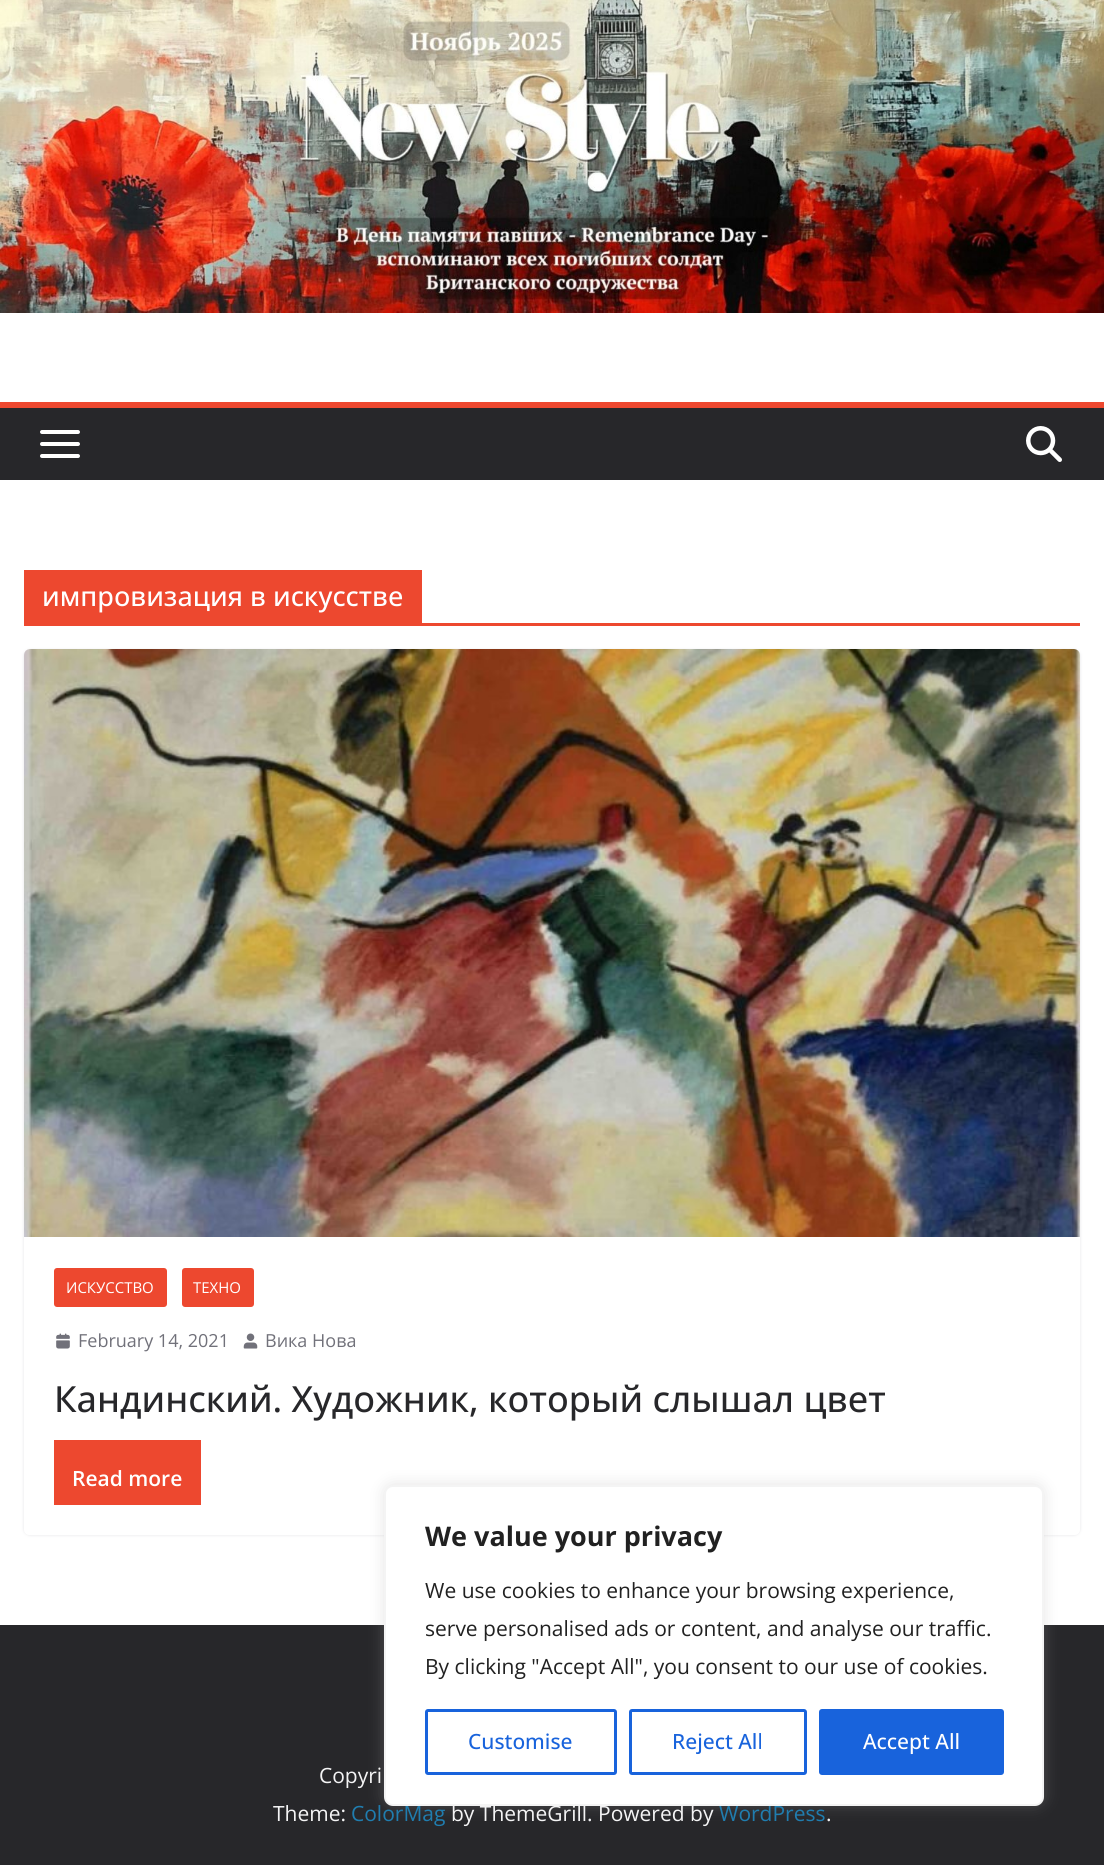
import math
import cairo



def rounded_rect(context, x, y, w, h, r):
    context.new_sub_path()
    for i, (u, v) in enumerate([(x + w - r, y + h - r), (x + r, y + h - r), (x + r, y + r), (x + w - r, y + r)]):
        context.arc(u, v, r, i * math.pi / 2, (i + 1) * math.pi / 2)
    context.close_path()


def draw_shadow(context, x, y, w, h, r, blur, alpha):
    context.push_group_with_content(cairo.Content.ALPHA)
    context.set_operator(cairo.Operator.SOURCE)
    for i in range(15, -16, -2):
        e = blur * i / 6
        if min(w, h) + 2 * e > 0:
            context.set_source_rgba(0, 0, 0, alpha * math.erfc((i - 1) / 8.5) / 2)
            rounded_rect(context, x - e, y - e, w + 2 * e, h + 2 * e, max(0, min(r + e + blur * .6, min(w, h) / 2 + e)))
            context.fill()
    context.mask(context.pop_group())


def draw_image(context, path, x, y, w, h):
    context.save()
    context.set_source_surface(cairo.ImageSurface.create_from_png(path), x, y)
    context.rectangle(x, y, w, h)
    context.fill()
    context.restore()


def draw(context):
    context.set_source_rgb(1, 1, 1)
    context.paint()
    draw_image(context, "images/1.png", 0, 0, 1104, 313)
    context.set_source_rgb(39 / 255, 39 / 255, 42 / 255)
    context.rectangle(0, 408, 1104, 72)
    context.fill()
    context.set_source_rgb(237 / 255, 72 / 255, 47 / 255)
    context.rectangle(0, 402, 1104, 6)
    context.fill()
    draw_image(context, "images/2.png", 40, 430, 40, 28)
    draw_image(context, "images/3.png", 1026, 426, 36, 36)
    context.rectangle(24, 623, 1056, 3)
    context.fill()
    context.rectangle(24, 570, 398, 53)
    context.fill()
    context.save()
    context.set_fill_rule(cairo.FillRule.EVEN_ODD)
    context.new_path()
    context.move_to(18, 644)
    context.line_to(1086, 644)
    context.line_to(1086, 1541)
    context.line_to(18, 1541)
    context.close_path()
    context.move_to(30, 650)
    context.line_to(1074, 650)
    context.curve_to(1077.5, 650, 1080, 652.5, 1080, 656)
    context.line_to(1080, 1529)
    context.curve_to(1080, 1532.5, 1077.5, 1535, 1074, 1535)
    context.line_to(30, 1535)
    context.curve_to(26.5, 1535, 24, 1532.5, 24, 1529)
    context.line_to(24, 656)
    context.curve_to(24, 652.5, 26.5, 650, 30, 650)
    context.close_path()
    context.clip()
    context.set_source_rgb(228 / 255, 228 / 255, 231 / 255)
    draw_shadow(context, 24, 650, 1056, 885, 6, 1.5, 1)
    context.restore()
    draw_image(context, "images/4.png", 24, 649, 1056, 588)
    rounded_rect(context, 54, 1268, 113, 39, 3)
    context.fill()
    rounded_rect(context, 182, 1268, 72, 39, 3)
    context.fill()
    draw_image(context, "images/5.png", 56, 1333, 14, 16)
    draw_image(context, "images/6.png", 243, 1333, 15, 16)
    context.rectangle(54, 1440, 147, 65)
    context.fill()
    context.set_source_rgb(39 / 255, 39 / 255, 42 / 255)
    context.rectangle(0, 1625, 1104, 240)
    context.fill()
    context.set_source_rgb(172 / 255, 171 / 255, 171 / 255)
    draw_shadow(context, 384, 1484, 660, 321, 9, 7.5, 0.3)
    context.select_font_face("Open Sans Medium")
    context.set_font_size(27)
    context.set_source_rgb(1, 1, 1)
    context.move_to(42, 606)
    context.show_text("импровизация в искусстве")
    context.select_font_face("Open Sans")
    context.set_font_size(15)
    context.move_to(66, 1293)
    context.show_text("ИСКУССТВО")
    context.move_to(193, 1293)
    context.show_text("ТЕХНО")
    context.set_font_size(18)
    context.set_source_rgb(113 / 255, 113 / 255, 122 / 255)
    context.move_to(78, 1347)
    context.show_text("February 14, 2021")
    context.move_to(265, 1347)
    context.show_text("Вика Нова")
    context.select_font_face("Open Sans Medium")
    context.set_font_size(36)
    context.set_source_rgb(39 / 255, 39 / 255, 42 / 255)
    context.move_to(54, 1412)
    context.show_text("Кандинский. Художник, который слышал цвет")
    context.select_font_face("Open Sans SemiBold")
    context.set_font_size(21)
    context.set_source_rgb(1, 1, 1)
    context.move_to(72, 1486)
    context.show_text("Read more")
    context.select_font_face("Open Sans")
    context.set_source_rgb(244 / 255, 244 / 255, 245 / 255)
    context.move_to(319, 1783)
    context.show_text("Copyri")
    context.move_to(273, 1821)
    context.show_text("Theme:")
    context.set_source_rgb(32 / 255, 125 / 255, 175 / 255)
    context.move_to(351, 1821)
    context.show_text("ColorMag")
    context.set_source_rgb(244 / 255, 244 / 255, 245 / 255)
    context.move_to(451, 1821)
    context.show_text("by ThemeGrill. Powered by")
    context.set_source_rgb(32 / 255, 125 / 255, 175 / 255)
    context.move_to(719, 1821)
    context.show_text("WordPress")
    context.set_source_rgb(244 / 255, 244 / 255, 245 / 255)
    context.move_to(826, 1821)
    context.show_text(".")
    context.set_source_rgb(1, 1, 1)
    rounded_rect(context, 385, 1486, 658, 319, 8)
    context.fill_preserve()
    context.set_source_rgb(244 / 255, 244 / 255, 244 / 255)
    context.stroke()
    context.select_font_face("Open Sans", cairo.FontSlant.NORMAL, cairo.FontWeight.BOLD)
    context.set_font_size(27)
    context.set_source_rgb(33 / 255, 33 / 255, 33 / 255)
    context.move_to(425, 1546)
    context.show_text("We value your privacy")
    context.select_font_face("Open Sans")
    context.set_font_size(21)
    context.move_to(425, 1598)
    context.show_text("We use cookies to enhance your browsing experience,")
    context.move_to(425, 1636)
    context.show_text("serve personalised ads or content, and analyse our traffic.")
    context.move_to(425, 1674)
    context.show_text("By clicking \"Accept All\", you consent to our use of cookies.")
    rounded_rect(context, 426.5, 1710.5, 189, 63, 1.5)
    context.set_source_rgb(24 / 255, 99 / 255, 220 / 255)
    context.set_line_width(3)
    context.stroke()
    context.select_font_face("Open Sans Medium")
    context.move_to(468, 1749)
    context.show_text("Customise")
    rounded_rect(context, 630.5, 1710.5, 175, 63, 1.5)
    context.stroke()
    context.move_to(672, 1749)
    context.show_text("Reject All")
    rounded_rect(context, 820.5, 1710.5, 182, 63, 1.5)
    context.fill_preserve()
    context.stroke()
    context.set_source_rgb(1, 1, 1)
    context.move_to(863, 1749)
    context.show_text("Accept All")


surface = cairo.ImageSurface(cairo.Format.RGB24, 1104, 1865)
context = cairo.Context(surface)
options = cairo.FontOptions()
options.set_hint_metrics(cairo.HintMetrics.OFF)
options.set_hint_style(cairo.HintStyle.NONE)
context.set_font_options(options)
context.set_miter_limit(4)
draw(context)
surface.write_to_png("out.png")
